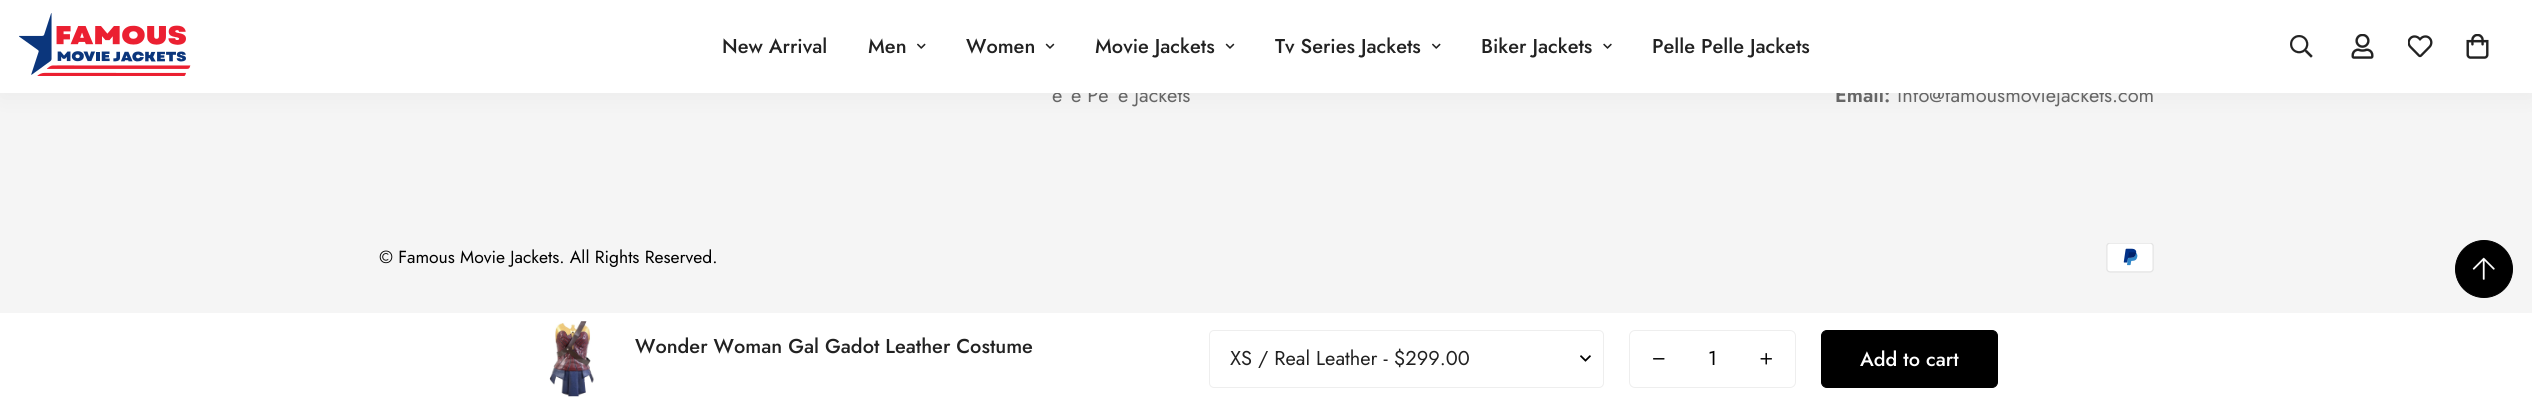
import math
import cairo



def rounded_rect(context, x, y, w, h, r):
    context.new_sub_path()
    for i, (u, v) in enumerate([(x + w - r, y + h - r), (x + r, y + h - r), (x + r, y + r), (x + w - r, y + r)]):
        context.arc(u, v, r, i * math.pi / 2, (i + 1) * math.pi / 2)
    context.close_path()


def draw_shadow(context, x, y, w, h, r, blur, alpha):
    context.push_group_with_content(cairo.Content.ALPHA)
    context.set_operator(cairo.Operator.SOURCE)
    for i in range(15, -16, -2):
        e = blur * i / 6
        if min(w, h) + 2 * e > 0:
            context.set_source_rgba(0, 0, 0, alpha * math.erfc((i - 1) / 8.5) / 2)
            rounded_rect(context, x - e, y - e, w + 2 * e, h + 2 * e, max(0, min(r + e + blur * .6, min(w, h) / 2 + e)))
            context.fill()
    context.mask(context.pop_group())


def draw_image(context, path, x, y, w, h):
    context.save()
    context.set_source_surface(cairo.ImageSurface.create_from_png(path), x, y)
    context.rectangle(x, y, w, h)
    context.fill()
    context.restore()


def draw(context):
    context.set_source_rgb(1, 1, 1)
    context.paint()
    context.set_source_rgb(245 / 255, 245 / 255, 245 / 255)
    context.rectangle(0, 93, 2532, 220)
    context.fill()
    context.set_source_rgb(0, 0, 0)
    draw_shadow(context, 0, 5, 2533, 93, 0, 12.5, 0.04)
    draw_image(context, "images/9.png", 2106, 243, 48, 30)
    context.set_source_rgb(0, 0, 0)
    context.arc(2484, 269, 28.5, 0, 2 * math.pi)
    context.fill_preserve()
    context.set_line_width(1)
    context.stroke()
    draw_image(context, "images/10.png", 2472, 257, 23, 23)
    draw_image(context, "images/11.png", 549, 321, 45, 76)
    draw_image(context, "images/12.png", 1580, 355, 11, 7)
    rounded_rect(context, 1209.5, 330.5, 394, 57, 4.5)
    context.set_source_rgb(238 / 255, 238 / 255, 238 / 255)
    context.stroke()
    rounded_rect(context, 1629.5, 330.5, 166, 57, 5.5)
    context.stroke()
    draw_image(context, "images/13.png", 1653, 358, 12, 2)
    draw_image(context, "images/14.png", 1760, 353, 12, 12)
    context.set_source_rgb(0, 0, 0)
    rounded_rect(context, 1821.5, 330.5, 176, 57, 5.5)
    context.fill_preserve()
    context.stroke()
    context.select_font_face("Jost")
    context.set_font_size(20)
    context.set_source_rgb(102 / 255, 102 / 255, 102 / 255)
    context.move_to(1052, 102)
    context.show_text("e")
    context.move_to(1071, 102)
    context.show_text("e Pe")
    context.move_to(1118, 102)
    context.show_text("e Jackets")
    context.select_font_face("Jost SemiBold")
    context.move_to(1835, 102)
    context.show_text("Email:")
    context.select_font_face("Jost")
    context.move_to(1897, 102)
    context.show_text("info@famousmoviejackets.com")
    context.set_source_rgb(1, 1, 1)
    context.rectangle(0, 0, 2532, 93)
    context.fill()
    draw_image(context, "images/8.png", 2466, 34, 23, 25)
    draw_image(context, "images/7.png", 2408, 35, 25, 23)
    draw_image(context, "images/6.png", 2351, 34, 23, 25)
    draw_image(context, "images/5.png", 2290, 35, 23, 23)
    context.select_font_face("Jost Medium")
    context.set_source_rgb(34 / 255, 34 / 255, 34 / 255)
    context.move_to(1652, 53)
    context.show_text("Pelle Pelle Jackets")
    draw_image(context, "images/4.png", 1603, 43, 9, 6)
    context.move_to(1481, 53)
    context.show_text("Biker Jackets")
    draw_image(context, "images/2.png", 1432, 43, 9, 6)
    context.move_to(1275, 53)
    context.show_text("Tv Series Jackets")
    draw_image(context, "images/3.png", 1225, 43, 10, 6)
    context.move_to(1095, 53)
    context.show_text("Movie Jackets")
    draw_image(context, "images/3.png", 1045, 43, 10, 6)
    context.move_to(966, 53)
    context.show_text("Women")
    draw_image(context, "images/2.png", 917, 43, 9, 6)
    context.move_to(868, 53)
    context.show_text("Men")
    context.move_to(722, 53)
    context.show_text("New Arrival")
    draw_image(context, "images/1.png", 19, 13, 172, 63)
    context.select_font_face("Jost")
    context.set_font_size(17.5)
    context.set_source_rgb(0, 0, 0)
    context.move_to(379, 263)
    context.show_text("© Famous Movie Jackets. All Rights Reserved.")
    context.select_font_face("Jost Medium")
    context.set_font_size(20)
    context.set_source_rgb(34 / 255, 34 / 255, 34 / 255)
    context.move_to(635, 353)
    context.show_text("Wonder Woman Gal Gadot Leather Costume")
    context.select_font_face("Jost")
    context.move_to(1230, 365)
    context.show_text("XS / Real Leather - $299.00")
    context.set_source_rgb(0, 0, 0)
    context.move_to(1708, 365)
    context.show_text("1")
    context.select_font_face("Jost Medium")
    context.set_source_rgb(1, 1, 1)
    context.move_to(1860, 366)
    context.show_text("Add to cart")


surface = cairo.ImageSurface(cairo.Format.RGB24, 2532, 405)
context = cairo.Context(surface)
options = cairo.FontOptions()
options.set_hint_metrics(cairo.HintMetrics.OFF)
options.set_hint_style(cairo.HintStyle.NONE)
context.set_font_options(options)
context.set_miter_limit(4)
draw(context)
surface.write_to_png("out.png")
